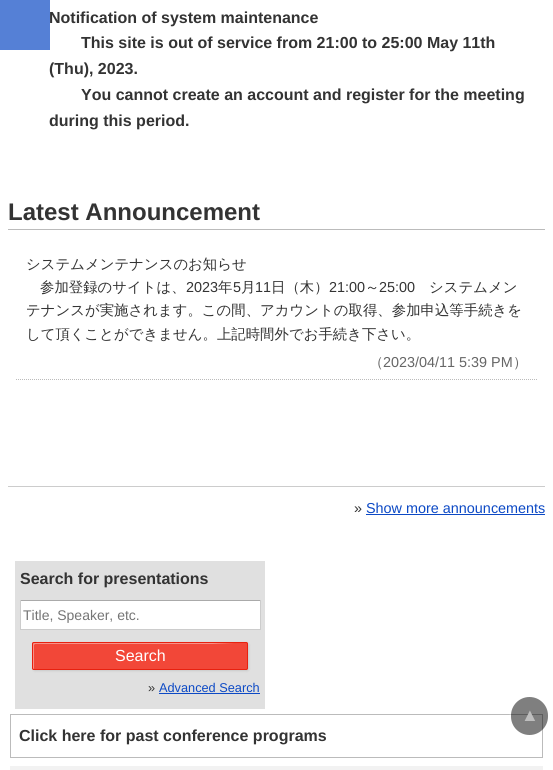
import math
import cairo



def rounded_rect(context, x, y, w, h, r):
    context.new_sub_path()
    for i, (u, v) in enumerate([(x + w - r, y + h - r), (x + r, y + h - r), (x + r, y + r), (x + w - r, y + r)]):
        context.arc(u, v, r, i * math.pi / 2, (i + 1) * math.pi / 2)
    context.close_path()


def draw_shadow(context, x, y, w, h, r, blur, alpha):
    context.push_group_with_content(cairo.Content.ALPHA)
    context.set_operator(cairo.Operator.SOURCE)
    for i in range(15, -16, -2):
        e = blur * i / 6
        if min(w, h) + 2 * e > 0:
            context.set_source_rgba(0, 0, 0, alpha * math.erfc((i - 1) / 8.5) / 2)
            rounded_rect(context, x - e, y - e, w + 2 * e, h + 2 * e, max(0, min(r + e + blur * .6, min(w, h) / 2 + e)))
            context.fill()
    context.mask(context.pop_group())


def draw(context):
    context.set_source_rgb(1, 1, 1)
    context.paint()
    context.set_source_rgb(85 / 255, 128 / 255, 214 / 255)
    context.rectangle(0, 0, 50, 50)
    context.fill()
    context.set_source_rgb(187 / 255, 187 / 255, 187 / 255)
    context.rectangle(8, 229, 537, 1)
    context.fill()
    context.set_source_rgb(204 / 255, 204 / 255, 204 / 255)
    context.rectangle(8, 486, 537, 1)
    context.fill()
    context.new_path()
    context.move_to(16, 379.5)
    context.line_to(537, 379.5)
    context.set_source_rgb(187 / 255, 187 / 255, 187 / 255)
    context.set_line_width(1)
    context.set_dash([1, 1])
    context.stroke()
    context.set_source_rgb(12 / 255, 73 / 255, 197 / 255)
    context.rectangle(366, 514, 179, 1)
    context.fill()
    context.set_source_rgb(224 / 255, 224 / 255, 224 / 255)
    context.rectangle(15, 561, 250, 148)
    context.fill()
    context.set_source_rgb(1, 1, 1)
    context.rectangle(21, 601, 239, 28)
    context.fill()
    context.set_source_rgb(170 / 255, 170 / 255, 170 / 255)
    context.rectangle(20, 600, 241, 1)
    context.fill()
    context.set_source_rgb(204 / 255, 204 / 255, 204 / 255)
    context.rectangle(260, 600, 1, 30)
    context.fill()
    context.rectangle(20, 629, 241, 1)
    context.fill()
    context.rectangle(20, 600, 1, 30)
    context.fill()
    context.set_source_rgb(0, 0, 0)
    draw_shadow(context, 33, 643, 216, 28, 2, 1, 0.1)
    context.set_source_rgb(242 / 255, 71 / 255, 56 / 255)
    rounded_rect(context, 32, 642, 216, 28, 2)
    context.fill()
    context.set_source_rgb(247 / 255, 145 / 255, 136 / 255)
    context.set_fill_rule(cairo.FillRule.EVEN_ODD)
    context.new_path()
    context.move_to(35, 644)
    context.line_to(34, 645)
    context.line_to(34, 669)
    context.curve_to(33, 669, 33, 669, 33, 668)
    context.line_to(33, 644)
    context.curve_to(33, 643, 33, 643, 34, 643)
    context.line_to(234, 643)
    context.line_to(212, 644)
    context.close_path()
    context.move_to(246, 643)
    context.line_to(247, 644)
    context.close_path()
    context.fill()
    rounded_rect(context, 32.5, 642.5, 215, 27, 1.5)
    context.set_source_rgb(232 / 255, 33 / 255, 15 / 255)
    context.set_dash([])
    context.stroke()
    context.set_source_rgb(12 / 255, 73 / 255, 197 / 255)
    context.rectangle(159, 693, 101, 1)
    context.fill()
    context.rectangle(10.5, 714.5, 532, 43)
    context.set_source_rgb(187 / 255, 187 / 255, 187 / 255)
    context.stroke()
    context.set_source_rgb(242 / 255, 242 / 255, 242 / 255)
    context.rectangle(10, 766, 533, 4)
    context.fill()
    context.save()
    context.new_path()
    context.move_to(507, 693)
    context.line_to(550, 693)
    context.line_to(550, 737)
    context.line_to(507, 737)
    context.close_path()
    context.move_to(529.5, 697)
    context.curve_to(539.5, 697, 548, 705.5, 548, 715.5)
    context.line_to(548, 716.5)
    context.curve_to(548, 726.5, 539.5, 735, 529.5, 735)
    context.curve_to(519.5, 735, 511, 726.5, 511, 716.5)
    context.line_to(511, 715.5)
    context.curve_to(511, 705.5, 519.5, 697, 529.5, 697)
    context.close_path()
    context.clip()
    context.set_source_rgb(1, 1, 1)
    draw_shadow(context, 510, 696, 37, 38, 18.5, 0.5, 0.3)
    context.restore()
    context.set_source_rgba(0, 0, 0, 0.5)
    rounded_rect(context, 511, 697, 37, 38, 18.5)
    context.fill()
    context.select_font_face("Liberation Sans", cairo.FontSlant.NORMAL, cairo.FontWeight.BOLD)
    context.set_font_size(16)
    context.set_source_rgb(51 / 255, 51 / 255, 51 / 255)
    context.move_to(49, 23)
    context.show_text("Notification of system maintenance")
    context.move_to(81, 48)
    context.show_text("This site is out of service from 21:00 to 25:00 May 11th")
    context.move_to(49, 74)
    context.show_text("(Thu), 2023.")
    context.move_to(81, 100)
    context.show_text("You cannot create an account and register for the meeting")
    context.move_to(49, 126)
    context.show_text("during this period.")
    context.set_font_size(24)
    context.move_to(8, 220)
    context.show_text("Latest Announcement")
    context.select_font_face("WenQuanYi Zen Hei Medium")
    context.set_font_size(14.4)
    context.move_to(26, 269)
    context.show_text("システムメンテナンスのお知らせ")
    context.move_to(40, 292)
    context.show_text("参加登録のサイトは、")
    context.select_font_face("Liberation Sans")
    context.move_to(186, 292)
    context.show_text("2023")
    context.select_font_face("WenQuanYi Zen Hei Medium")
    context.move_to(218, 292)
    context.show_text("年")
    context.select_font_face("Liberation Sans")
    context.move_to(233, 292)
    context.show_text("5")
    context.select_font_face("WenQuanYi Zen Hei Medium")
    context.move_to(241, 292)
    context.show_text("月")
    context.select_font_face("Liberation Sans")
    context.move_to(255, 292)
    context.show_text("11")
    context.select_font_face("WenQuanYi Zen Hei Medium")
    context.move_to(271, 292)
    context.show_text("日（木）")
    context.select_font_face("Liberation Sans")
    context.move_to(329, 292)
    context.show_text("21:00")
    context.select_font_face("WenQuanYi Zen Hei Medium")
    context.move_to(365, 292)
    context.show_text("～")
    context.select_font_face("Liberation Sans")
    context.move_to(379, 292)
    context.show_text("25:00")
    context.select_font_face("WenQuanYi Zen Hei Medium")
    context.move_to(429, 292)
    context.show_text("システムメン")
    context.move_to(26, 315)
    context.show_text("テナンスが実施されます。この間、アカウントの取得、参加申込等手続きを")
    context.move_to(26, 339)
    context.show_text("して頂くことができません。上記時間外でお手続き下さい。")
    context.set_source_rgb(102 / 255, 102 / 255, 102 / 255)
    context.move_to(369, 367)
    context.show_text("（")
    context.select_font_face("Liberation Sans")
    context.move_to(383, 367)
    context.show_text("2023/04/11 5:39 PM")
    context.select_font_face("WenQuanYi Zen Hei Medium")
    context.move_to(513, 367)
    context.show_text("）")
    context.select_font_face("Liberation Sans")
    context.set_source_rgb(51 / 255, 51 / 255, 51 / 255)
    context.move_to(354, 513)
    context.show_text("»")
    context.set_source_rgb(12 / 255, 73 / 255, 197 / 255)
    context.move_to(366, 513)
    context.show_text("Show more announcements")
    context.select_font_face("Liberation Sans", cairo.FontSlant.NORMAL, cairo.FontWeight.BOLD)
    context.set_font_size(16)
    context.set_source_rgb(51 / 255, 51 / 255, 51 / 255)
    context.move_to(20, 584)
    context.show_text("Search for presentations")
    context.select_font_face("Liberation Sans")
    context.set_font_size(14)
    context.set_source_rgb(117 / 255, 117 / 255, 117 / 255)
    context.move_to(23, 620)
    context.show_text("Title, Speaker, etc.")
    context.set_font_size(16)
    context.set_source_rgb(1, 1, 1)
    context.move_to(115, 661)
    context.show_text("Search")
    context.set_font_size(12.75)
    context.set_source_rgb(51 / 255, 51 / 255, 51 / 255)
    context.move_to(148, 692)
    context.show_text("»")
    context.set_source_rgb(12 / 255, 73 / 255, 197 / 255)
    context.move_to(159, 692)
    context.show_text("Advanced Search")
    context.select_font_face("Liberation Sans", cairo.FontSlant.NORMAL, cairo.FontWeight.BOLD)
    context.set_font_size(16)
    context.set_source_rgb(51 / 255, 51 / 255, 51 / 255)
    context.move_to(19, 741)
    context.show_text("Click here for past conference programs")
    context.select_font_face("Liberation Sans")
    context.set_font_size(18)
    context.set_source_rgb(190 / 255, 190 / 255, 190 / 255)
    context.move_to(521, 721)
    context.show_text("▲")


surface = cairo.ImageSurface(cairo.Format.RGB24, 553, 770)
context = cairo.Context(surface)
options = cairo.FontOptions()
options.set_hint_metrics(cairo.HintMetrics.OFF)
options.set_hint_style(cairo.HintStyle.NONE)
context.set_font_options(options)
context.set_miter_limit(4)
draw(context)
surface.write_to_png("out.png")
